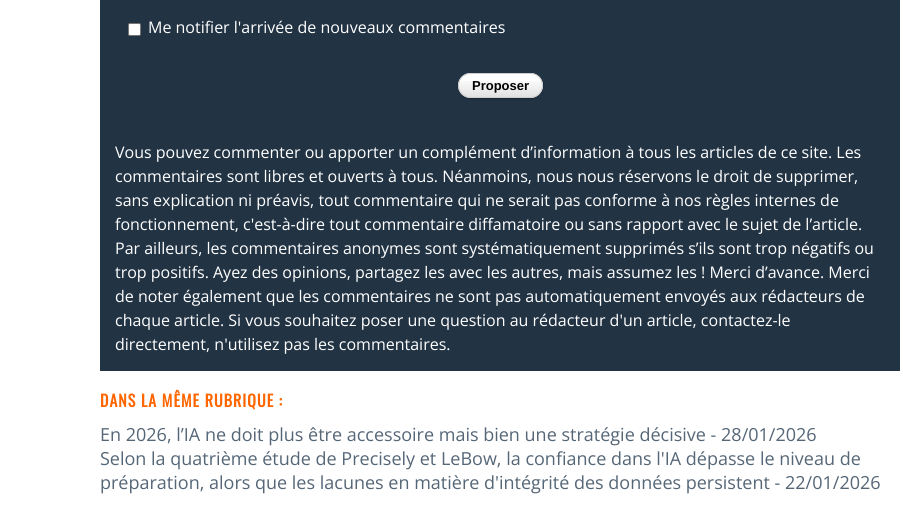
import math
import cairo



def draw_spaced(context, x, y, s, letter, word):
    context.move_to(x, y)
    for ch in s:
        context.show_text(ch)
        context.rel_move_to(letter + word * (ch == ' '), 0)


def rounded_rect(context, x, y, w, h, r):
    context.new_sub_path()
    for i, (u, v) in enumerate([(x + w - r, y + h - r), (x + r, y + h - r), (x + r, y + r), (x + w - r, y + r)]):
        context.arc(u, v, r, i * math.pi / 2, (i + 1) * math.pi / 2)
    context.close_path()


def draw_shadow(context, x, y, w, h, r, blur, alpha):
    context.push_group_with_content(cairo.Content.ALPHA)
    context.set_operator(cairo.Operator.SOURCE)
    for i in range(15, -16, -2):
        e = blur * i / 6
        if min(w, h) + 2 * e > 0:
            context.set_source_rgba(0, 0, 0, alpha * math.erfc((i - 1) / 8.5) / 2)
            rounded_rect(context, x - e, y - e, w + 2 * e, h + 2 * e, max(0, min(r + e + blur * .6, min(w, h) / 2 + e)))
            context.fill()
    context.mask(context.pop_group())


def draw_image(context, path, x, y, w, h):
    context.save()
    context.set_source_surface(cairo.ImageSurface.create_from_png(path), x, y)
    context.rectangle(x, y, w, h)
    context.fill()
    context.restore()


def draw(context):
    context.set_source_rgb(1, 1, 1)
    context.paint()
    context.set_source_rgb(34 / 255, 51 / 255, 68 / 255)
    context.rectangle(100, 0, 800, 371)
    context.fill()
    context.set_source_rgb(1, 1, 1)
    rounded_rect(context, 128.5, 23.5, 12, 12, 1.5)
    context.fill_preserve()
    context.set_source_rgb(118 / 255, 118 / 255, 118 / 255)
    context.set_line_width(1)
    context.stroke()
    context.set_source_rgb(0, 0, 0)
    draw_shadow(context, 458, 74, 85, 25, 12.5, 1, 0.25)
    context.set_source_rgb(1, 1, 1)
    rounded_rect(context, 458, 73, 85, 25, 12.5)
    context.fill()
    draw_image(context, "images/1.png", 458, 81, 85, 17)
    rounded_rect(context, 458.5, 73.5, 84, 24, 12)
    context.set_source_rgb(204 / 255, 204 / 255, 204 / 255)
    context.stroke()
    context.select_font_face("Open Sans")
    context.set_font_size(16)
    context.set_source_rgb(1, 1, 1)
    context.move_to(148, 33)
    context.show_text("Me notifier l'arrivée de nouveaux commentaires")
    context.select_font_face("Liberation Sans", cairo.FontSlant.NORMAL, cairo.FontWeight.BOLD)
    context.set_font_size(13)
    context.set_source_rgb(0, 0, 0)
    context.move_to(472, 90)
    context.show_text("Proposer")
    context.select_font_face("Open Sans")
    context.set_font_size(16)
    context.set_source_rgb(1, 1, 1)
    context.move_to(115, 158)
    context.show_text("Vous pouvez commenter ou apporter un complément d’information à tous les articles de ce site. Les")
    context.move_to(115, 182)
    context.show_text("commentaires sont libres et ouverts à tous. Néanmoins, nous nous réservons le droit de supprimer,")
    context.move_to(115, 206)
    context.show_text("sans explication ni préavis, tout commentaire qui ne serait pas conforme à nos règles internes de")
    context.move_to(115, 230)
    context.show_text("fonctionnement, c'est-à-dire tout commentaire diffamatoire ou sans rapport avec le sujet de l’article.")
    context.move_to(115, 254)
    context.show_text("Par ailleurs, les commentaires anonymes sont systématiquement supprimés s’ils sont trop négatifs ou")
    context.move_to(115, 278)
    context.show_text("trop positifs. Ayez des opinions, partagez les avec les autres, mais assumez les ! Merci d’avance. Merci")
    context.move_to(115, 302)
    context.show_text("de noter également que les commentaires ne sont pas automatiquement envoyés aux rédacteurs de")
    context.move_to(115, 326)
    context.show_text("chaque article. Si vous souhaitez poser une question au rédacteur d'un article, contactez-le")
    context.move_to(115, 350)
    context.show_text("directement, n'utilisez pas les commentaires.")
    context.select_font_face("Oswald", cairo.FontSlant.NORMAL, cairo.FontWeight.BOLD)
    context.set_source_rgb(1, 102 / 255, 0)
    draw_spaced(context, 100, 407, "DANS LA MÊME RUBRIQUE :", 1, 0)
    context.select_font_face("Open Sans")
    context.set_font_size(18)
    context.set_source_rgb(85 / 255, 102 / 255, 119 / 255)
    context.move_to(100, 441)
    context.show_text("En 2026, l’IA ne doit plus être accessoire mais bien une stratégie décisive - 28/01/2026")
    context.move_to(100, 465)
    context.show_text("Selon la quatrième étude de Precisely et LeBow, la confiance dans l'IA dépasse le niveau de")
    context.move_to(100, 489)
    context.show_text("préparation, alors que les lacunes en matière d'intégrité des données persistent - 22/01/2026")


surface = cairo.ImageSurface(cairo.Format.RGB24, 903, 507)
context = cairo.Context(surface)
options = cairo.FontOptions()
options.set_hint_metrics(cairo.HintMetrics.OFF)
options.set_hint_style(cairo.HintStyle.NONE)
context.set_font_options(options)
context.set_miter_limit(4)
draw(context)
surface.write_to_png("out.png")
